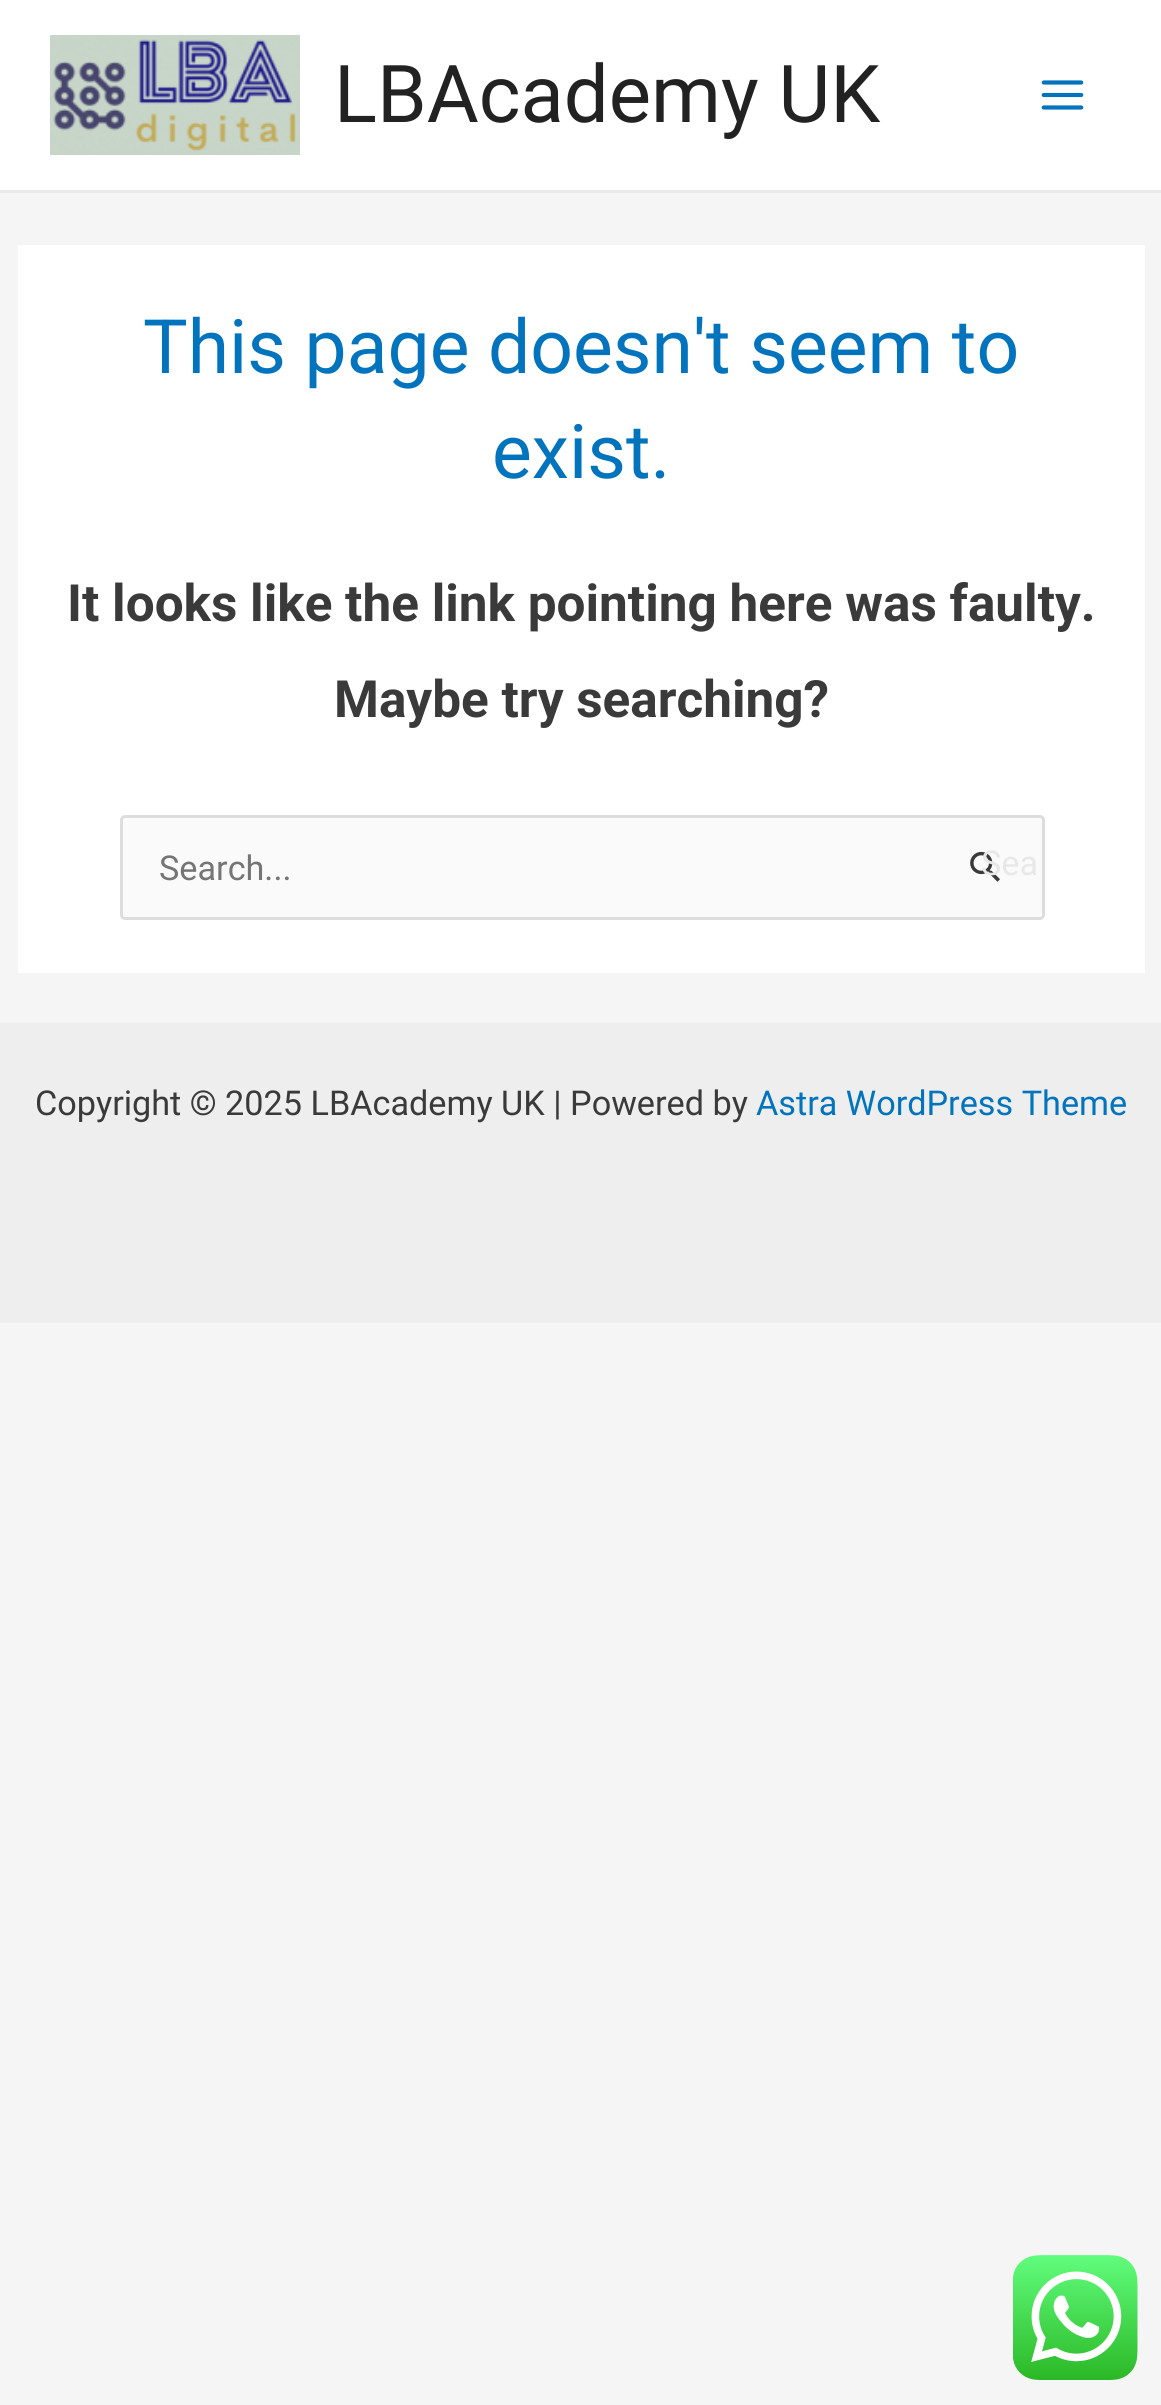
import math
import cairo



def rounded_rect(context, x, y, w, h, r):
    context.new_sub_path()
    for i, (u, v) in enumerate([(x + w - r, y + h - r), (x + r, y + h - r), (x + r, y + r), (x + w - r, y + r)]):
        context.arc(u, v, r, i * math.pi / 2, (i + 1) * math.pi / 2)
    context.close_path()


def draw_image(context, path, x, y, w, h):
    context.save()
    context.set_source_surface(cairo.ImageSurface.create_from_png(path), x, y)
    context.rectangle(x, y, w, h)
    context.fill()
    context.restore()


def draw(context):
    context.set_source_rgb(245 / 255, 245 / 255, 245 / 255)
    context.paint()
    context.set_source_rgb(1, 1, 1)
    context.rectangle(0, 0, 1161, 190)
    context.fill()
    context.set_source_rgb(234 / 255, 234 / 255, 234 / 255)
    context.rectangle(0, 190, 1161, 3)
    context.fill()
    draw_image(context, "images/1.png", 50, 35, 250, 120)
    draw_image(context, "images/2.png", 1041, 80, 43, 30)
    context.set_source_rgb(1, 1, 1)
    context.rectangle(18, 245, 1127, 728)
    context.fill()
    context.set_source_rgb(250 / 255, 250 / 255, 250 / 255)
    rounded_rect(context, 121.5, 816.5, 922, 102, 3.5)
    context.fill_preserve()
    context.set_source_rgb(221 / 255, 221 / 255, 221 / 255)
    context.set_line_width(3)
    context.stroke()
    draw_image(context, "images/3.png", 970, 851, 30, 31)
    context.set_source_rgb(238 / 255, 238 / 255, 238 / 255)
    context.rectangle(0, 1023, 1161, 300)
    context.fill()
    draw_image(context, "images/4.png", 1013, 2255, 125, 125)
    context.select_font_face("Roboto")
    context.set_font_size(79.75)
    context.set_source_rgb(34 / 255, 34 / 255, 34 / 255)
    context.move_to(334, 122)
    context.show_text("LBAcademy UK")
    context.set_font_size(75)
    context.set_source_rgb(2 / 255, 116 / 255, 190 / 255)
    context.move_to(143, 373)
    context.show_text("This page doesn't seem to")
    context.move_to(492, 478)
    context.show_text("exist.")
    context.select_font_face("Roboto", cairo.FontSlant.NORMAL, cairo.FontWeight.BOLD)
    context.set_font_size(51.3)
    context.set_source_rgb(58 / 255, 58 / 255, 58 / 255)
    context.move_to(67, 621)
    context.show_text("It looks like the link pointing here was faulty.")
    context.move_to(334, 717)
    context.show_text("Maybe try searching?")
    context.select_font_face("Roboto")
    context.set_font_size(34.2)
    context.set_source_rgb(232 / 255, 232 / 255, 232 / 255)
    context.move_to(981, 875)
    context.show_text("Sea")
    context.set_source_rgb(117 / 255, 117 / 255, 117 / 255)
    context.move_to(159, 880)
    context.show_text("Search...")
    context.set_source_rgb(58 / 255, 58 / 255, 58 / 255)
    context.move_to(35, 1115)
    context.show_text("Copyright © 2025 LBAcademy UK | Powered by")
    context.set_source_rgb(2 / 255, 116 / 255, 190 / 255)
    context.move_to(756, 1115)
    context.show_text("Astra WordPress Theme")


surface = cairo.ImageSurface(cairo.Format.RGB24, 1161, 2405)
context = cairo.Context(surface)
options = cairo.FontOptions()
options.set_hint_metrics(cairo.HintMetrics.OFF)
options.set_hint_style(cairo.HintStyle.NONE)
context.set_font_options(options)
context.set_miter_limit(4)
draw(context)
surface.write_to_png("out.png")
